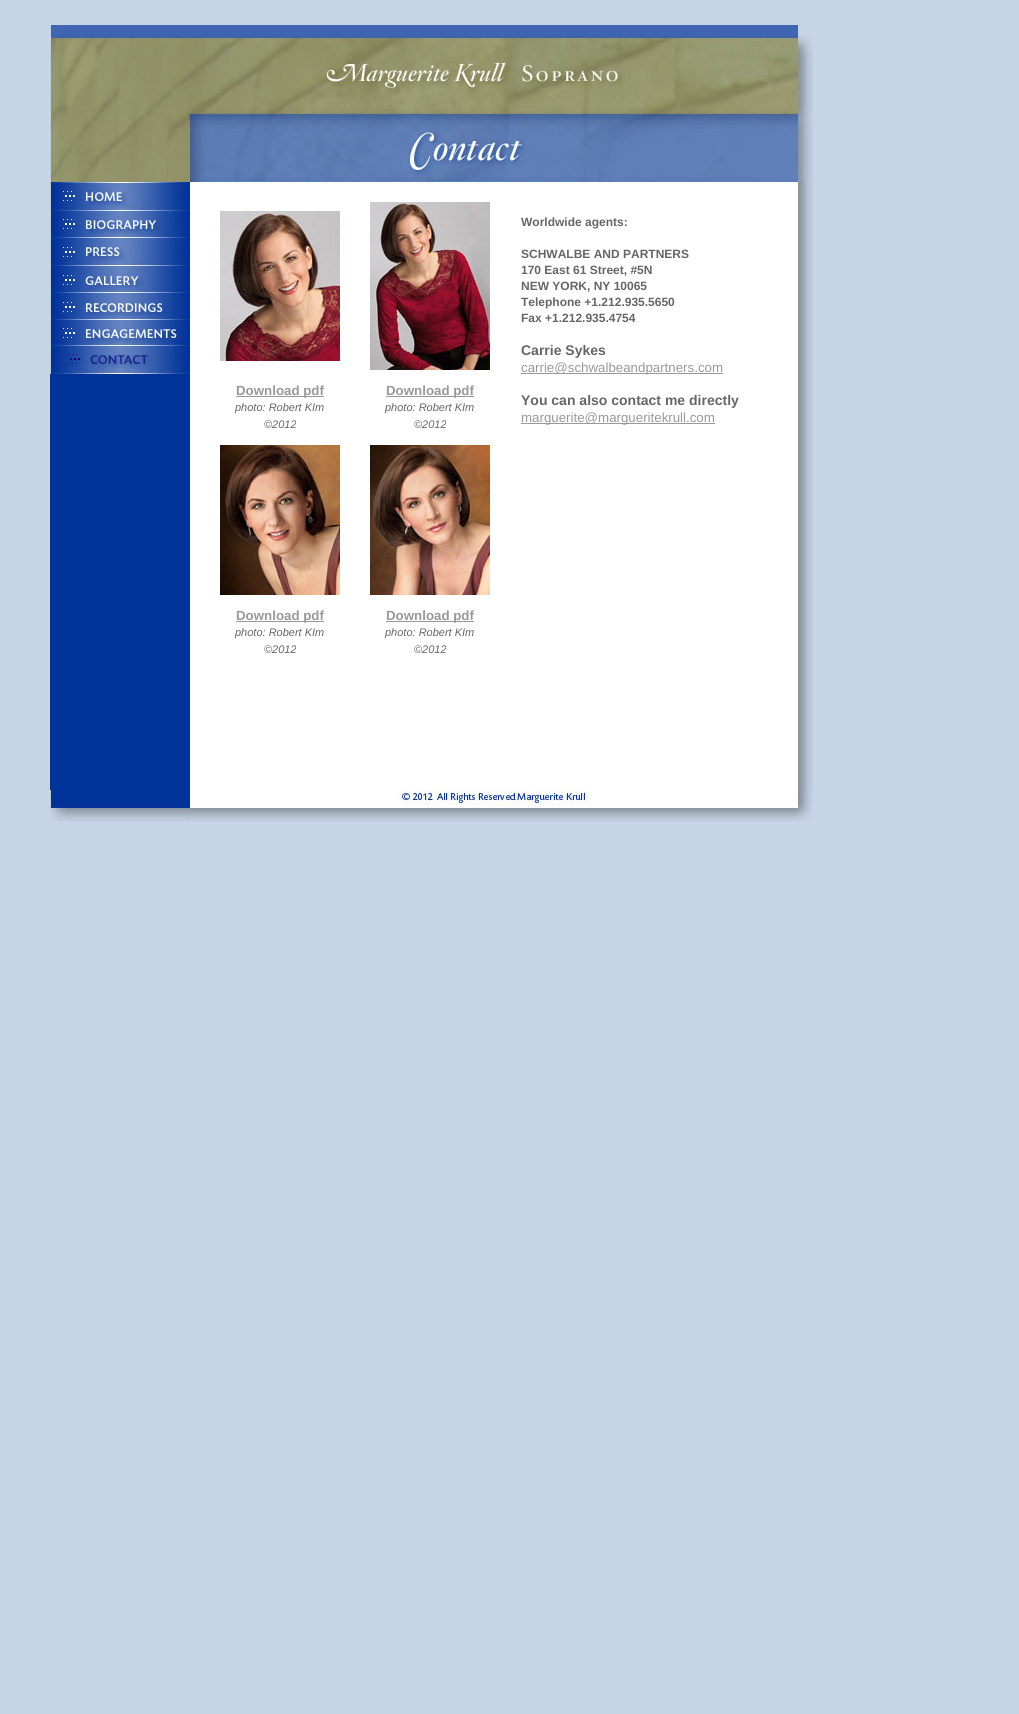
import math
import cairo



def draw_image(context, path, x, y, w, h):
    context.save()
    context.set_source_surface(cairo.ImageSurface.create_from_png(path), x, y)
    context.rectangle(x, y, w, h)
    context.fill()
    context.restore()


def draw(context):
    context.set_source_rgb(199 / 255, 214 / 255, 231 / 255)
    context.paint()
    draw_image(context, "images/1.png", 50, 25, 140, 157)
    draw_image(context, "images/2.png", 190, 25, 624, 88)
    draw_image(context, "images/3.png", 190, 113, 624, 69)
    context.set_source_rgb(0, 51 / 255, 153 / 255)
    context.rectangle(50, 374, 140, 416)
    context.fill()
    draw_image(context, "images/4.png", 50, 182, 140, 29)
    draw_image(context, "images/5.png", 50, 211, 140, 27)
    draw_image(context, "images/6.png", 50, 238, 140, 28)
    draw_image(context, "images/7.png", 50, 266, 140, 27)
    draw_image(context, "images/8.png", 50, 293, 140, 27)
    draw_image(context, "images/9.png", 50, 320, 140, 26)
    draw_image(context, "images/10.png", 50, 346, 140, 28)
    draw_image(context, "images/11.png", 190, 182, 624, 608)
    context.set_source_rgb(153 / 255, 153 / 255, 153 / 255)
    context.rectangle(521, 373, 202, 1)
    context.fill()
    context.rectangle(521, 423, 194, 1)
    context.fill()
    draw_image(context, "images/12.png", 220, 211, 120, 150)
    draw_image(context, "images/13.png", 370, 202, 120, 168)
    context.rectangle(236, 396, 88, 1)
    context.fill()
    context.rectangle(386, 396, 88, 1)
    context.fill()
    draw_image(context, "images/14.png", 220, 445, 120, 150)
    draw_image(context, "images/15.png", 370, 445, 120, 150)
    context.rectangle(236, 621, 88, 1)
    context.fill()
    context.rectangle(386, 621, 88, 1)
    context.fill()
    draw_image(context, "images/16.png", 50, 790, 140, 32)
    draw_image(context, "images/17.png", 190, 790, 623, 32)
    context.select_font_face("Liberation Sans", cairo.FontSlant.NORMAL, cairo.FontWeight.BOLD)
    context.set_font_size(12)
    context.set_source_rgb(102 / 255, 102 / 255, 102 / 255)
    context.move_to(521, 226)
    context.show_text("Worldwide agents:")
    context.move_to(521, 258)
    context.show_text("SCHWALBE AND PARTNERS")
    context.move_to(521, 274)
    context.show_text("170 East 61 Street, #5N")
    context.move_to(521, 290)
    context.show_text("NEW YORK, NY 10065")
    context.move_to(521, 306)
    context.show_text("Telephone +1.212.935.5650")
    context.move_to(521, 322)
    context.show_text("Fax +1.212.935.4754")
    context.set_font_size(14)
    context.move_to(521, 355)
    context.show_text("Carrie Sykes")
    context.select_font_face("Liberation Sans")
    context.set_font_size(13.3)
    context.set_source_rgb(153 / 255, 153 / 255, 153 / 255)
    context.move_to(521, 372)
    context.show_text("carrie@schwalbeandpartners.com")
    context.select_font_face("Liberation Sans", cairo.FontSlant.NORMAL, cairo.FontWeight.BOLD)
    context.set_font_size(14)
    context.set_source_rgb(102 / 255, 102 / 255, 102 / 255)
    context.move_to(521, 405)
    context.show_text("You can also contact me directly")
    context.select_font_face("Liberation Sans")
    context.set_font_size(13.3)
    context.set_source_rgb(153 / 255, 153 / 255, 153 / 255)
    context.move_to(521, 422)
    context.show_text("marguerite@margueritekrull.com")
    context.select_font_face("Liberation Sans", cairo.FontSlant.NORMAL, cairo.FontWeight.BOLD)
    context.move_to(236, 395)
    context.show_text("Download pdf")
    context.select_font_face("Liberation Sans", cairo.FontSlant.ITALIC)
    context.set_font_size(11)
    context.set_source_rgb(102 / 255, 102 / 255, 102 / 255)
    context.move_to(235, 411)
    context.show_text("photo: Robert KIm")
    context.move_to(264, 428)
    context.show_text("©2012")
    context.select_font_face("Liberation Sans", cairo.FontSlant.NORMAL, cairo.FontWeight.BOLD)
    context.set_font_size(13.3)
    context.set_source_rgb(153 / 255, 153 / 255, 153 / 255)
    context.move_to(386, 395)
    context.show_text("Download pdf")
    context.select_font_face("Liberation Sans", cairo.FontSlant.ITALIC)
    context.set_font_size(11)
    context.set_source_rgb(102 / 255, 102 / 255, 102 / 255)
    context.move_to(385, 411)
    context.show_text("photo: Robert KIm")
    context.move_to(414, 428)
    context.show_text("©2012")
    context.select_font_face("Liberation Sans", cairo.FontSlant.NORMAL, cairo.FontWeight.BOLD)
    context.set_font_size(13.3)
    context.set_source_rgb(153 / 255, 153 / 255, 153 / 255)
    context.move_to(236, 620)
    context.show_text("Download pdf")
    context.select_font_face("Liberation Sans", cairo.FontSlant.ITALIC)
    context.set_font_size(11)
    context.set_source_rgb(102 / 255, 102 / 255, 102 / 255)
    context.move_to(235, 636)
    context.show_text("photo: Robert KIm")
    context.move_to(264, 653)
    context.show_text("©2012")
    context.select_font_face("Liberation Sans", cairo.FontSlant.NORMAL, cairo.FontWeight.BOLD)
    context.set_font_size(13.3)
    context.set_source_rgb(153 / 255, 153 / 255, 153 / 255)
    context.move_to(386, 620)
    context.show_text("Download pdf")
    context.select_font_face("Liberation Sans", cairo.FontSlant.ITALIC)
    context.set_font_size(11)
    context.set_source_rgb(102 / 255, 102 / 255, 102 / 255)
    context.move_to(385, 636)
    context.show_text("photo: Robert KIm")
    context.move_to(414, 653)
    context.show_text("©2012")


surface = cairo.ImageSurface(cairo.Format.RGB24, 1019, 1714)
context = cairo.Context(surface)
options = cairo.FontOptions()
options.set_hint_metrics(cairo.HintMetrics.OFF)
options.set_hint_style(cairo.HintStyle.NONE)
context.set_font_options(options)
context.set_miter_limit(4)
draw(context)
surface.write_to_png("out.png")
